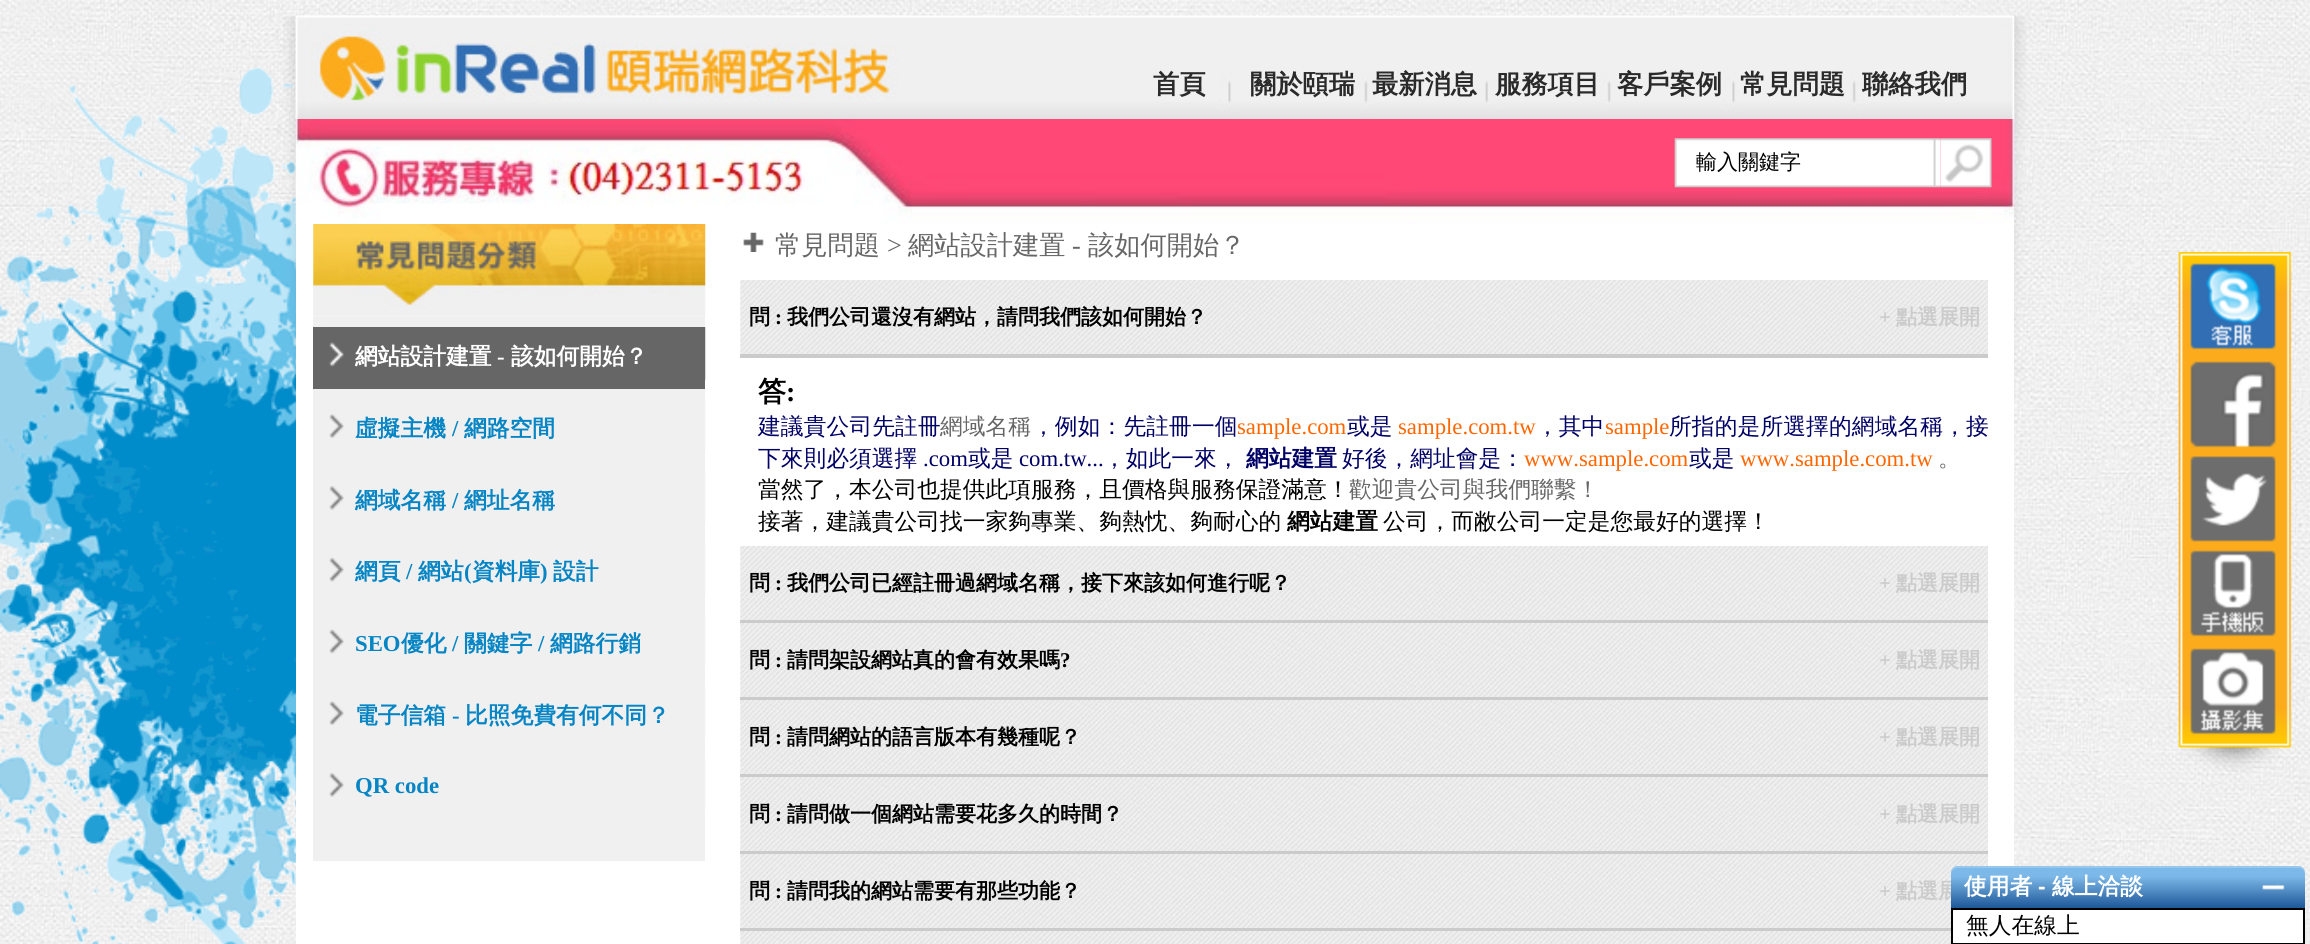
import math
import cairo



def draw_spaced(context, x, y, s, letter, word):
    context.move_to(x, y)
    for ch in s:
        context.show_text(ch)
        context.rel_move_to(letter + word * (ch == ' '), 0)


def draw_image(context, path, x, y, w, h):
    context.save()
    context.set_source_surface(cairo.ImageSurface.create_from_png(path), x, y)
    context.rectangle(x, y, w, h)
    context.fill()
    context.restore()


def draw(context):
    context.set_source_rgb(1, 1, 1)
    context.paint()
    draw_image(context, "images/1.png", 0, 0, 2310, 944)
    draw_image(context, "images/2.png", 0, 68, 296, 876)
    draw_image(context, "images/3.png", 283, 15, 1744, 384)
    draw_image(context, "images/4.png", 295, 15, 1720, 104)
    draw_image(context, "images/5.png", 295, 15, 617, 104)
    draw_image(context, "images/6.png", 295, 119, 1720, 105)
    draw_image(context, "images/7.png", 1674, 138, 267, 50)
    draw_image(context, "images/8.png", 1940, 138, 52, 50)
    context.set_source_rgb(1, 1, 1)
    context.rectangle(296, 224, 1718, 720)
    context.fill()
    draw_image(context, "images/9.png", 313, 224, 393, 93)
    context.set_source_rgb(240 / 255, 240 / 255, 240 / 255)
    context.rectangle(313, 317, 392, 544)
    context.fill()
    context.set_source_rgb(102 / 255, 102 / 255, 102 / 255)
    context.rectangle(313, 327, 392, 62)
    context.fill()
    draw_image(context, "images/10.png", 329, 327, 377, 53)
    draw_image(context, "images/11.png", 329, 399, 377, 52)
    draw_image(context, "images/12.png", 329, 471, 377, 52)
    draw_image(context, "images/13.png", 329, 543, 377, 52)
    draw_image(context, "images/14.png", 329, 615, 377, 51)
    draw_image(context, "images/11.png", 329, 686, 377, 52)
    draw_image(context, "images/12.png", 329, 758, 377, 52)
    draw_image(context, "images/15.png", 743, 232, 21, 20)
    draw_image(context, "images/16.png", 740, 280, 1248, 74)
    context.set_source_rgb(203 / 255, 203 / 255, 203 / 255)
    context.rectangle(740, 354, 1248, 4)
    context.fill()
    draw_image(context, "images/16.png", 740, 546, 1248, 74)
    context.rectangle(740, 620, 1248, 4)
    context.fill()
    draw_image(context, "images/16.png", 740, 623, 1248, 74)
    context.rectangle(740, 697, 1248, 4)
    context.fill()
    draw_image(context, "images/16.png", 740, 700, 1248, 74)
    context.rectangle(740, 774, 1248, 4)
    context.fill()
    draw_image(context, "images/16.png", 740, 777, 1248, 74)
    context.rectangle(740, 851, 1248, 4)
    context.fill()
    draw_image(context, "images/16.png", 740, 854, 1248, 74)
    context.rectangle(740, 928, 1211, 4)
    context.fill()
    draw_image(context, "images/17.png", 740, 931, 1211, 13)
    draw_image(context, "images/18.png", 2178, 252, 114, 520)
    draw_image(context, "images/19.png", 2190, 263, 87, 87)
    draw_image(context, "images/20.png", 2190, 361, 87, 87)
    draw_image(context, "images/21.png", 2190, 456, 86, 86)
    draw_image(context, "images/22.png", 2190, 550, 86, 87)
    draw_image(context, "images/23.png", 2190, 648, 86, 87)
    context.set_source_rgb(1, 1, 1)
    context.rectangle(1952, 909, 352, 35)
    context.fill_preserve()
    context.set_source_rgb(0, 0, 0)
    context.stroke()
    context.select_font_face("WenQuanYi Zen Hei", cairo.FontSlant.NORMAL, cairo.FontWeight.BOLD)
    context.set_font_size(26.25)
    context.set_source_rgb(42 / 255, 42 / 255, 42 / 255)
    context.move_to(1153, 93)
    context.show_text("首頁")
    context.move_to(1250, 93)
    context.show_text("關於頤瑞")
    context.move_to(1372, 93)
    context.show_text("最新消息")
    context.move_to(1495, 93)
    context.show_text("服務項目")
    context.move_to(1617, 93)
    context.show_text("客戶案例")
    context.move_to(1740, 93)
    context.show_text("常見問題")
    context.move_to(1862, 93)
    context.show_text("聯絡我們")
    context.select_font_face("WenQuanYi Zen Hei Medium")
    context.set_font_size(21)
    context.set_source_rgb(0, 0, 0)
    context.move_to(1696, 169)
    context.show_text("輸入關鍵字")
    context.select_font_face("WenQuanYi Zen Hei", cairo.FontSlant.NORMAL, cairo.FontWeight.BOLD)
    context.set_font_size(22.75)
    context.set_source_rgb(1, 1, 1)
    context.move_to(355, 364)
    context.show_text("網站設計建置")
    context.select_font_face("Liberation Serif", cairo.FontSlant.NORMAL, cairo.FontWeight.BOLD)
    context.move_to(497, 364)
    context.show_text("-")
    context.select_font_face("WenQuanYi Zen Hei", cairo.FontSlant.NORMAL, cairo.FontWeight.BOLD)
    context.move_to(511, 364)
    context.show_text("該如何開始？")
    context.set_source_rgb(6 / 255, 133 / 255, 197 / 255)
    context.move_to(355, 436)
    context.show_text("虛擬主機")
    context.select_font_face("Liberation Serif", cairo.FontSlant.NORMAL, cairo.FontWeight.BOLD)
    context.move_to(452, 436)
    context.show_text("/")
    context.select_font_face("WenQuanYi Zen Hei", cairo.FontSlant.NORMAL, cairo.FontWeight.BOLD)
    context.move_to(464, 436)
    context.show_text("網路空間")
    context.move_to(355, 508)
    context.show_text("網域名稱")
    context.select_font_face("Liberation Serif", cairo.FontSlant.NORMAL, cairo.FontWeight.BOLD)
    context.move_to(452, 508)
    context.show_text("/")
    context.select_font_face("WenQuanYi Zen Hei", cairo.FontSlant.NORMAL, cairo.FontWeight.BOLD)
    context.move_to(464, 508)
    context.show_text("網址名稱")
    context.move_to(355, 579)
    context.show_text("網頁")
    context.select_font_face("Liberation Serif", cairo.FontSlant.NORMAL, cairo.FontWeight.BOLD)
    context.move_to(406, 579)
    context.show_text("/")
    context.select_font_face("WenQuanYi Zen Hei", cairo.FontSlant.NORMAL, cairo.FontWeight.BOLD)
    context.move_to(418, 579)
    context.show_text("網站")
    context.select_font_face("Liberation Serif", cairo.FontSlant.NORMAL, cairo.FontWeight.BOLD)
    context.move_to(464, 579)
    context.show_text("(")
    context.select_font_face("WenQuanYi Zen Hei", cairo.FontSlant.NORMAL, cairo.FontWeight.BOLD)
    context.move_to(472, 579)
    context.show_text("資料庫")
    context.select_font_face("Liberation Serif", cairo.FontSlant.NORMAL, cairo.FontWeight.BOLD)
    context.move_to(540, 579)
    context.show_text(")")
    context.select_font_face("WenQuanYi Zen Hei", cairo.FontSlant.NORMAL, cairo.FontWeight.BOLD)
    context.move_to(553, 579)
    context.show_text("設計")
    context.select_font_face("Liberation Serif", cairo.FontSlant.NORMAL, cairo.FontWeight.BOLD)
    context.move_to(355, 651)
    context.show_text("SEO")
    context.select_font_face("WenQuanYi Zen Hei", cairo.FontSlant.NORMAL, cairo.FontWeight.BOLD)
    context.move_to(401, 651)
    context.show_text("優化")
    context.select_font_face("Liberation Serif", cairo.FontSlant.NORMAL, cairo.FontWeight.BOLD)
    context.move_to(452, 651)
    context.show_text("/")
    context.select_font_face("WenQuanYi Zen Hei", cairo.FontSlant.NORMAL, cairo.FontWeight.BOLD)
    context.move_to(464, 651)
    context.show_text("關鍵字")
    context.select_font_face("Liberation Serif", cairo.FontSlant.NORMAL, cairo.FontWeight.BOLD)
    context.move_to(538, 651)
    context.show_text("/")
    context.select_font_face("WenQuanYi Zen Hei", cairo.FontSlant.NORMAL, cairo.FontWeight.BOLD)
    context.move_to(550, 651)
    context.show_text("網路行銷")
    context.move_to(355, 723)
    context.show_text("電子信箱")
    context.select_font_face("Liberation Serif", cairo.FontSlant.NORMAL, cairo.FontWeight.BOLD)
    context.move_to(452, 723)
    context.show_text("-")
    context.select_font_face("WenQuanYi Zen Hei", cairo.FontSlant.NORMAL, cairo.FontWeight.BOLD)
    context.move_to(465, 723)
    context.show_text("比照免費有何不同？")
    context.select_font_face("Liberation Serif", cairo.FontSlant.NORMAL, cairo.FontWeight.BOLD)
    context.move_to(355, 793)
    context.show_text("QR code")
    context.select_font_face("WenQuanYi Zen Hei Medium")
    context.set_font_size(26.25)
    context.set_source_rgb(102 / 255, 102 / 255, 102 / 255)
    context.move_to(775, 254)
    context.show_text("常見問題")
    context.select_font_face("Liberation Serif")
    context.move_to(887, 254)
    context.show_text(">")
    context.select_font_face("WenQuanYi Zen Hei Medium")
    context.move_to(908, 254)
    context.show_text("網站設計建置")
    context.select_font_face("Liberation Serif")
    context.move_to(1072, 254)
    context.show_text("-")
    context.select_font_face("WenQuanYi Zen Hei Medium")
    context.move_to(1088, 254)
    context.show_text("該如何開始？")
    context.select_font_face("WenQuanYi Zen Hei", cairo.FontSlant.NORMAL, cairo.FontWeight.BOLD)
    context.set_font_size(21)
    context.set_source_rgb(0, 0, 0)
    context.move_to(749, 324)
    context.show_text("問")
    context.select_font_face("Liberation Serif", cairo.FontSlant.NORMAL, cairo.FontWeight.BOLD)
    context.move_to(775, 324)
    context.show_text(":")
    context.select_font_face("WenQuanYi Zen Hei", cairo.FontSlant.NORMAL, cairo.FontWeight.BOLD)
    context.move_to(787, 324)
    context.show_text("我們公司還沒有網站，請問我們該如何開始？")
    context.select_font_face("Liberation Serif", cairo.FontSlant.NORMAL, cairo.FontWeight.BOLD)
    context.set_source_rgb(203 / 255, 203 / 255, 203 / 255)
    context.move_to(1879, 324)
    context.show_text("+")
    context.select_font_face("WenQuanYi Zen Hei", cairo.FontSlant.NORMAL, cairo.FontWeight.BOLD)
    context.move_to(1896, 324)
    context.show_text("點選展開")
    context.set_font_size(28)
    context.set_source_rgb(0, 0, 0)
    context.move_to(758, 401)
    context.show_text("答")
    context.select_font_face("Liberation Serif", cairo.FontSlant.NORMAL, cairo.FontWeight.BOLD)
    context.move_to(786, 401)
    context.show_text(":")
    context.select_font_face("WenQuanYi Zen Hei Medium")
    context.set_font_size(22.75)
    context.set_source_rgb(0, 0, 102 / 255)
    draw_spaced(context, 758, 434, "建議貴公司先註冊", 0.1, 0)
    context.set_source_rgb(102 / 255, 102 / 255, 102 / 255)
    context.move_to(940, 434)
    context.show_text("網域名稱")
    context.set_source_rgb(0, 0, 102 / 255)
    draw_spaced(context, 1032, 434, "，例如：先註冊一個", 0.1, 0)
    context.select_font_face("Liberation Serif")
    context.set_source_rgb(1, 102 / 255, 0)
    context.move_to(1237, 434)
    context.show_text("sample.com")
    context.select_font_face("WenQuanYi Zen Hei Medium")
    context.set_source_rgb(0, 0, 102 / 255)
    context.move_to(1347, 434)
    context.show_text("或是")
    context.select_font_face("Liberation Serif")
    context.set_source_rgb(1, 102 / 255, 0)
    context.move_to(1398, 434)
    context.show_text("sample.com.tw")
    context.select_font_face("WenQuanYi Zen Hei Medium")
    context.set_source_rgb(0, 0, 102 / 255)
    context.move_to(1536, 434)
    context.show_text("，其中")
    context.select_font_face("Liberation Serif")
    context.set_source_rgb(1, 102 / 255, 0)
    context.move_to(1605, 434)
    context.show_text("sample")
    context.select_font_face("WenQuanYi Zen Hei Medium")
    context.set_source_rgb(0, 0, 102 / 255)
    draw_spaced(context, 1669, 434, "所指的是所選擇的網域名稱，接", 0.1, 0)
    context.move_to(758, 466)
    context.show_text("下來則必須選擇")
    context.select_font_face("Liberation Serif")
    context.move_to(923, 466)
    context.show_text(".com")
    context.select_font_face("WenQuanYi Zen Hei Medium")
    context.move_to(968, 466)
    context.show_text("或是")
    context.select_font_face("Liberation Serif")
    context.move_to(1019, 466)
    context.show_text("com.tw...")
    context.select_font_face("WenQuanYi Zen Hei Medium")
    context.move_to(1103, 466)
    context.show_text("，如此一來，")
    context.select_font_face("WenQuanYi Zen Hei", cairo.FontSlant.NORMAL, cairo.FontWeight.BOLD)
    context.move_to(1246, 466)
    context.show_text("網站建置")
    context.select_font_face("WenQuanYi Zen Hei Medium")
    context.move_to(1342, 466)
    context.show_text("好後，網址會是：")
    context.select_font_face("Liberation Serif")
    context.set_source_rgb(1, 102 / 255, 0)
    context.move_to(1524, 466)
    context.show_text("www.sample.com")
    context.select_font_face("WenQuanYi Zen Hei Medium")
    context.set_source_rgb(0, 0, 102 / 255)
    context.move_to(1689, 466)
    context.show_text("或是")
    context.select_font_face("Liberation Serif")
    context.set_source_rgb(1, 102 / 255, 0)
    context.move_to(1740, 466)
    context.show_text("www.sample.com.tw")
    context.select_font_face("WenQuanYi Zen Hei Medium")
    context.set_source_rgb(102 / 255, 102 / 255, 102 / 255)
    context.move_to(1938, 466)
    context.show_text("。")
    context.set_source_rgb(0, 0, 0)
    context.move_to(758, 497)
    context.show_text("當然了，本公司也提供此項服務，且價格與服務保證滿意！")
    context.set_source_rgb(102 / 255, 102 / 255, 102 / 255)
    context.move_to(1349, 497)
    context.show_text("歡迎貴公司與我們聯繫！")
    context.set_source_rgb(0, 0, 0)
    context.move_to(758, 529)
    context.show_text("接著，建議貴公司找一家夠專業、夠熱忱、夠耐心的")
    context.select_font_face("WenQuanYi Zen Hei", cairo.FontSlant.NORMAL, cairo.FontWeight.BOLD)
    context.move_to(1287, 529)
    context.show_text("網站建置")
    context.select_font_face("WenQuanYi Zen Hei Medium")
    context.move_to(1383, 529)
    context.show_text("公司，而敝公司一定是您最好的選擇！")
    context.select_font_face("WenQuanYi Zen Hei", cairo.FontSlant.NORMAL, cairo.FontWeight.BOLD)
    context.set_font_size(21)
    context.move_to(749, 590)
    context.show_text("問")
    context.select_font_face("Liberation Serif", cairo.FontSlant.NORMAL, cairo.FontWeight.BOLD)
    context.move_to(775, 590)
    context.show_text(":")
    context.select_font_face("WenQuanYi Zen Hei", cairo.FontSlant.NORMAL, cairo.FontWeight.BOLD)
    context.move_to(787, 590)
    context.show_text("我們公司已經註冊過網域名稱，接下來該如何進行呢？")
    context.select_font_face("Liberation Serif", cairo.FontSlant.NORMAL, cairo.FontWeight.BOLD)
    context.set_source_rgb(203 / 255, 203 / 255, 203 / 255)
    context.move_to(1879, 590)
    context.show_text("+")
    context.select_font_face("WenQuanYi Zen Hei", cairo.FontSlant.NORMAL, cairo.FontWeight.BOLD)
    context.move_to(1896, 590)
    context.show_text("點選展開")
    context.set_source_rgb(0, 0, 0)
    context.move_to(749, 667)
    context.show_text("問")
    context.select_font_face("Liberation Serif", cairo.FontSlant.NORMAL, cairo.FontWeight.BOLD)
    context.move_to(775, 667)
    context.show_text(":")
    context.select_font_face("WenQuanYi Zen Hei", cairo.FontSlant.NORMAL, cairo.FontWeight.BOLD)
    context.move_to(787, 667)
    context.show_text("請問架設網站真的會有效果嗎")
    context.select_font_face("Liberation Serif", cairo.FontSlant.NORMAL, cairo.FontWeight.BOLD)
    context.move_to(1060, 667)
    context.show_text("?")
    context.set_source_rgb(203 / 255, 203 / 255, 203 / 255)
    context.move_to(1879, 667)
    context.show_text("+")
    context.select_font_face("WenQuanYi Zen Hei", cairo.FontSlant.NORMAL, cairo.FontWeight.BOLD)
    context.move_to(1896, 667)
    context.show_text("點選展開")
    context.set_source_rgb(0, 0, 0)
    context.move_to(749, 744)
    context.show_text("問")
    context.select_font_face("Liberation Serif", cairo.FontSlant.NORMAL, cairo.FontWeight.BOLD)
    context.move_to(775, 744)
    context.show_text(":")
    context.select_font_face("WenQuanYi Zen Hei", cairo.FontSlant.NORMAL, cairo.FontWeight.BOLD)
    context.move_to(787, 744)
    context.show_text("請問網站的語言版本有幾種呢？")
    context.select_font_face("Liberation Serif", cairo.FontSlant.NORMAL, cairo.FontWeight.BOLD)
    context.set_source_rgb(203 / 255, 203 / 255, 203 / 255)
    context.move_to(1879, 744)
    context.show_text("+")
    context.select_font_face("WenQuanYi Zen Hei", cairo.FontSlant.NORMAL, cairo.FontWeight.BOLD)
    context.move_to(1896, 744)
    context.show_text("點選展開")
    context.set_source_rgb(0, 0, 0)
    context.move_to(749, 821)
    context.show_text("問")
    context.select_font_face("Liberation Serif", cairo.FontSlant.NORMAL, cairo.FontWeight.BOLD)
    context.move_to(775, 821)
    context.show_text(":")
    context.select_font_face("WenQuanYi Zen Hei", cairo.FontSlant.NORMAL, cairo.FontWeight.BOLD)
    context.move_to(787, 821)
    context.show_text("請問做一個網站需要花多久的時間？")
    context.select_font_face("Liberation Serif", cairo.FontSlant.NORMAL, cairo.FontWeight.BOLD)
    context.set_source_rgb(203 / 255, 203 / 255, 203 / 255)
    context.move_to(1879, 821)
    context.show_text("+")
    context.select_font_face("WenQuanYi Zen Hei", cairo.FontSlant.NORMAL, cairo.FontWeight.BOLD)
    context.move_to(1896, 821)
    context.show_text("點選展開")
    context.set_source_rgb(0, 0, 0)
    context.move_to(749, 898)
    context.show_text("問")
    context.select_font_face("Liberation Serif", cairo.FontSlant.NORMAL, cairo.FontWeight.BOLD)
    context.move_to(775, 898)
    context.show_text(":")
    context.select_font_face("WenQuanYi Zen Hei", cairo.FontSlant.NORMAL, cairo.FontWeight.BOLD)
    context.move_to(787, 898)
    context.show_text("請問我的網站需要有那些功能？")
    context.select_font_face("Liberation Serif", cairo.FontSlant.NORMAL, cairo.FontWeight.BOLD)
    context.set_source_rgb(203 / 255, 203 / 255, 203 / 255)
    context.move_to(1879, 898)
    context.show_text("+")
    context.select_font_face("WenQuanYi Zen Hei", cairo.FontSlant.NORMAL, cairo.FontWeight.BOLD)
    context.move_to(1896, 898)
    context.show_text("點選展")
    gradient = cairo.LinearGradient(2128, 866, 2128, 908)
    gradient.add_color_stop_rgba(0.24, 125 / 255, 185 / 255, 232 / 255, 1)
    gradient.add_color_stop_rgba(1, 30 / 255, 87 / 255, 153 / 255, 1)
    context.set_source(gradient)
    context.new_path()
    context.move_to(1958, 866)
    context.line_to(2298, 866)
    context.curve_to(2302, 866, 2305, 869, 2305, 873)
    context.line_to(2305, 908)
    context.line_to(1951, 908)
    context.line_to(1951, 873)
    context.curve_to(1951, 869, 1954, 866, 1958, 866)
    context.close_path()
    context.fill()
    context.set_source_rgba(1, 1, 1, 0.2)
    context.new_path()
    context.move_to(1958, 868)
    context.line_to(2298, 868)
    context.curve_to(2302, 868, 2305, 871, 2305, 875)
    context.curve_to(2305, 871, 2303, 866, 2298, 866)
    context.line_to(1957, 866)
    context.curve_to(1952, 867, 1951, 871, 1951, 875)
    context.curve_to(1951, 871, 1954, 868, 1958, 868)
    context.close_path()
    context.fill()
    context.set_font_size(22.75)
    context.set_source_rgb(1, 1, 1)
    context.move_to(1964, 894)
    context.show_text("使用者")
    context.select_font_face("Liberation Sans", cairo.FontSlant.NORMAL, cairo.FontWeight.BOLD)
    context.move_to(2038, 894)
    context.show_text("-")
    context.select_font_face("WenQuanYi Zen Hei", cairo.FontSlant.NORMAL, cairo.FontWeight.BOLD)
    context.move_to(2052, 894)
    context.show_text("線上洽談")
    draw_image(context, "images/24.png", 2262, 883, 23, 7)
    context.select_font_face("WenQuanYi Zen Hei Medium")
    context.set_source_rgb(0, 0, 0)
    context.move_to(1966, 933)
    context.show_text("無人在線上")


surface = cairo.ImageSurface(cairo.Format.RGB24, 2310, 944)
context = cairo.Context(surface)
options = cairo.FontOptions()
options.set_hint_metrics(cairo.HintMetrics.OFF)
options.set_hint_style(cairo.HintStyle.NONE)
context.set_font_options(options)
context.set_miter_limit(4)
draw(context)
surface.write_to_png("out.png")
